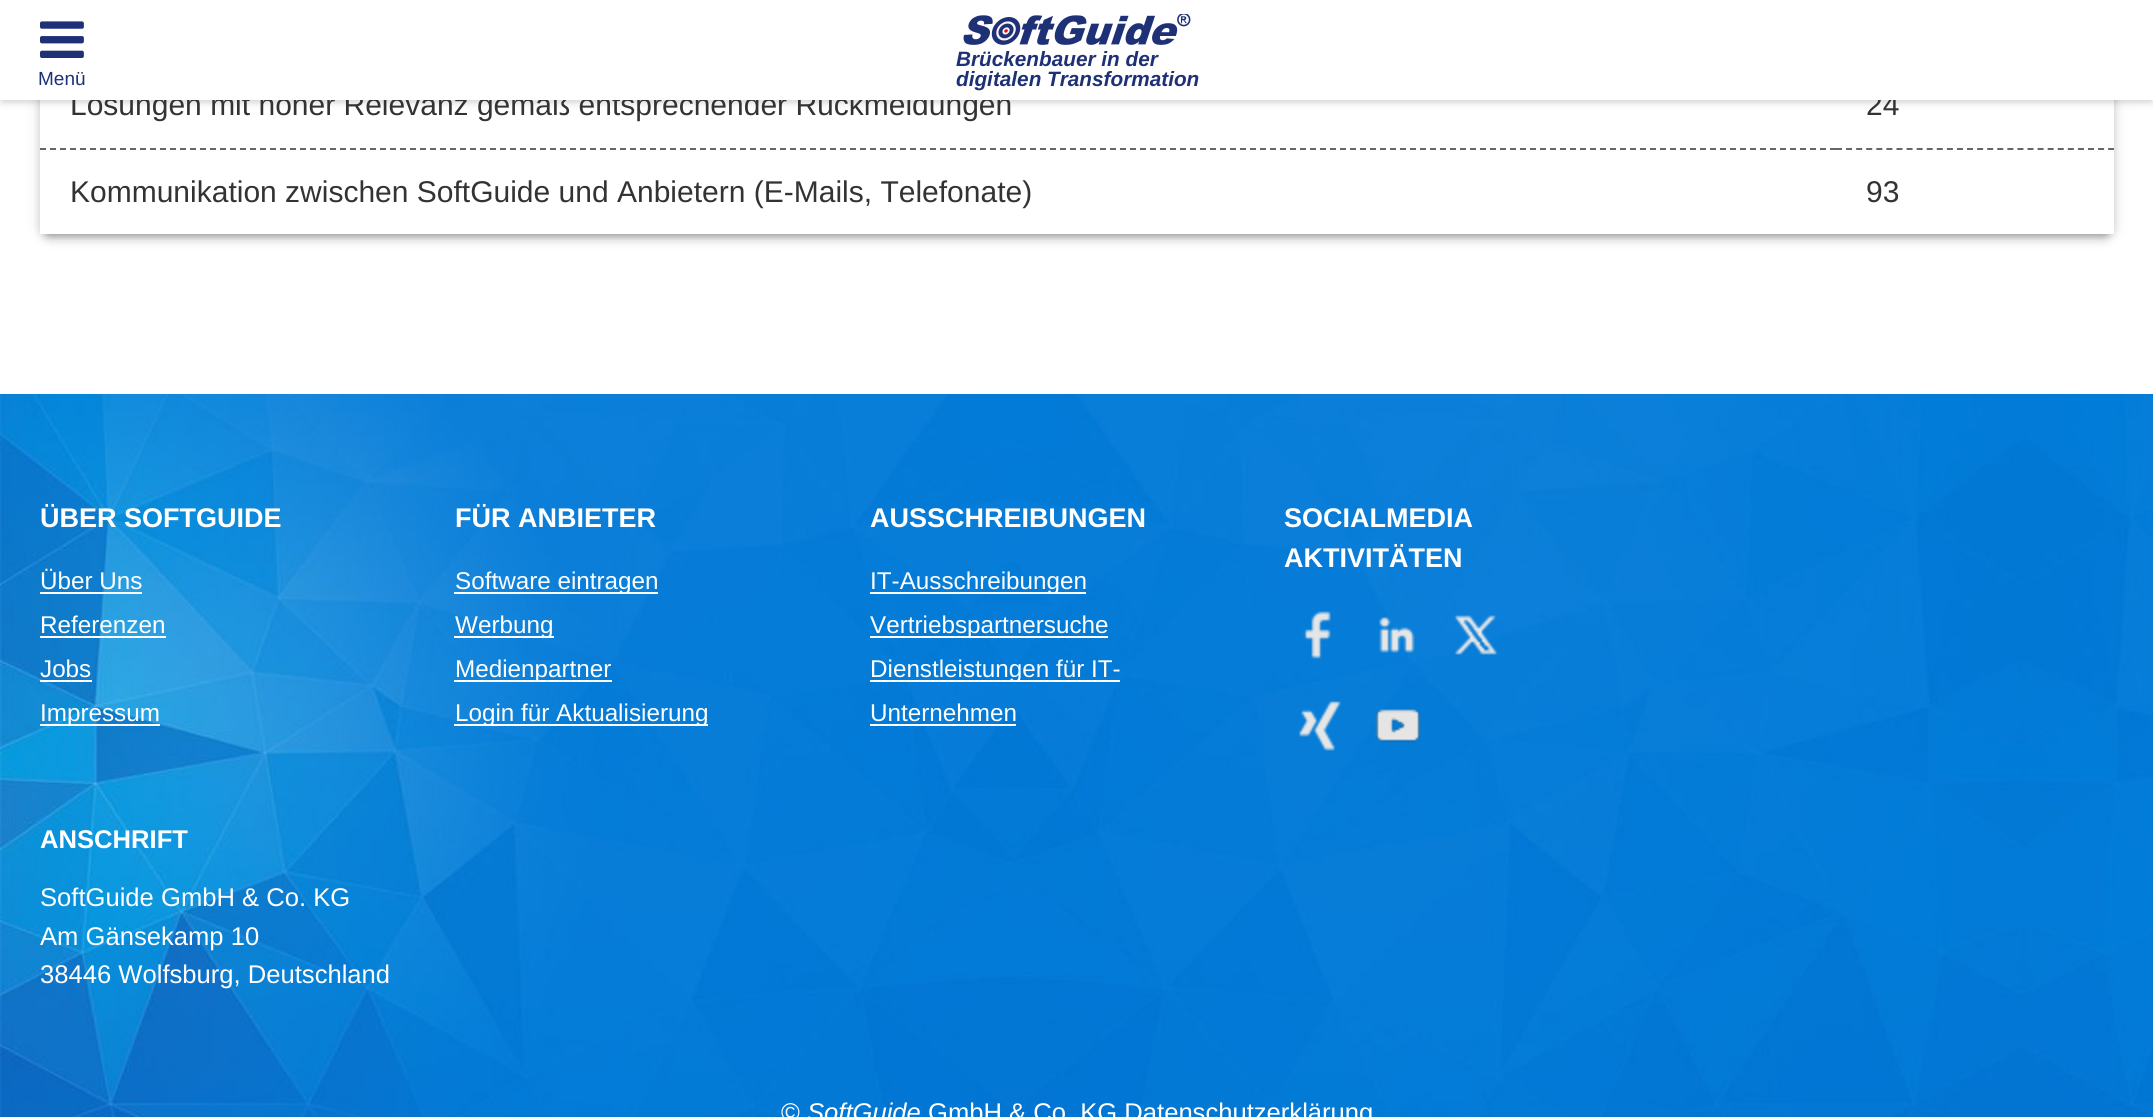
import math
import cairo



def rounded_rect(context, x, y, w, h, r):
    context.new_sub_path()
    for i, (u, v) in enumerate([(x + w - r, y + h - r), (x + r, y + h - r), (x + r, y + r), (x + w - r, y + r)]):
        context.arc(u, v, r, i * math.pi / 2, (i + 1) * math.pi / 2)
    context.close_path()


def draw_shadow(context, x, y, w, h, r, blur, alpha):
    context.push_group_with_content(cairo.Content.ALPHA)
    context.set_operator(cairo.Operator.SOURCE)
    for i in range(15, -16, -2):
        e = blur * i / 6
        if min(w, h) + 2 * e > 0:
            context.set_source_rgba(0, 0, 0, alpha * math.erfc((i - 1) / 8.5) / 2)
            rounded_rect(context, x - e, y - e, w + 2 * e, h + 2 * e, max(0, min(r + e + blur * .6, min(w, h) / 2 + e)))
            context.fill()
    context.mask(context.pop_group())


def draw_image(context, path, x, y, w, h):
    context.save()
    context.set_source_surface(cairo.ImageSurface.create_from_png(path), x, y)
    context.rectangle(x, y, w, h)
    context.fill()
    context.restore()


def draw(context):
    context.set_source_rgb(1, 1, 1)
    context.paint()
    context.set_source_rgb(0, 0, 0)
    draw_shadow(context, 2, 6, 2150, 96, 0, 4, 0.2)
    context.save()
    context.set_fill_rule(cairo.FillRule.EVEN_ODD)
    context.new_path()
    context.move_to(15, 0)
    context.line_to(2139, 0)
    context.line_to(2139, 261)
    context.line_to(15, 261)
    context.close_path()
    context.move_to(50, -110)
    context.line_to(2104, -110)
    context.curve_to(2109.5, -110, 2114, -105.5, 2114, -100)
    context.line_to(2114, 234)
    context.line_to(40, 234)
    context.line_to(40, -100)
    context.curve_to(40, -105.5, 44.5, -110, 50, -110)
    context.close_path()
    context.clip()
    draw_shadow(context, 40, -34, 2074, 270, 10, 8, 0.12)
    context.restore()
    context.save()
    context.set_fill_rule(cairo.FillRule.EVEN_ODD)
    context.new_path()
    context.move_to(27, 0)
    context.line_to(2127, 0)
    context.line_to(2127, 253)
    context.line_to(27, 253)
    context.close_path()
    context.move_to(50, -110)
    context.line_to(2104, -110)
    context.curve_to(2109.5, -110, 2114, -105.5, 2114, -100)
    context.line_to(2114, 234)
    context.line_to(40, 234)
    context.line_to(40, -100)
    context.curve_to(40, -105.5, 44.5, -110, 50, -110)
    context.close_path()
    context.clip()
    draw_shadow(context, 40, -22, 2074, 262, 10, 4, 0.14)
    context.restore()
    context.save()
    context.rectangle(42, 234, 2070, 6)
    context.clip()
    draw_shadow(context, 44, -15, 2066, 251, 6, 3, 0.2)
    context.restore()
    context.new_path()
    context.move_to(40, 149)
    context.line_to(1836, 149)
    context.set_source_rgb(102 / 255, 102 / 255, 102 / 255)
    context.set_dash([6, 4])
    context.stroke()
    context.new_path()
    context.move_to(1836, 149)
    context.line_to(2114, 149)
    context.set_dash([6, 4.08])
    context.stroke()
    draw_image(context, "images/3.png", 0, 394, 2153, 723)
    context.set_source_rgb(1, 1, 1)
    context.rectangle(40, 592, 102, 2)
    context.fill()
    context.rectangle(40, 636, 126, 2)
    context.fill()
    context.rectangle(40, 680, 52, 2)
    context.fill()
    context.rectangle(40, 724, 120, 2)
    context.fill()
    context.rectangle(454, 592, 204, 2)
    context.fill()
    context.rectangle(454, 636, 100, 2)
    context.fill()
    context.rectangle(454, 680, 158, 2)
    context.fill()
    context.rectangle(454, 724, 254, 2)
    context.fill()
    context.rectangle(870, 592, 216, 2)
    context.fill()
    context.rectangle(870, 636, 238, 2)
    context.fill()
    context.rectangle(870, 680, 250, 2)
    context.fill()
    context.rectangle(870, 724, 146, 2)
    context.fill()
    draw_image(context, "images/4.png", 1303, 611, 28, 48)
    draw_image(context, "images/5.png", 1379, 616, 36, 37)
    draw_image(context, "images/6.png", 1454, 615, 44, 40)
    draw_image(context, "images/7.png", 1299, 701, 42, 50)
    draw_image(context, "images/8.png", 1375, 709, 46, 34)
    context.select_font_face("Liberation Sans")
    context.set_font_size(30)
    context.set_source_rgb(51 / 255, 51 / 255, 51 / 255)
    context.move_to(70, 115)
    context.show_text("Lösungen mit hoher Relevanz gemäß entsprechender Rückmeldungen")
    context.move_to(1866, 115)
    context.show_text("24")
    context.set_source_rgb(1, 1, 1)
    context.rectangle(0, 0, 2153, 100)
    context.fill()
    context.set_font_size(19)
    context.set_source_rgb(30 / 255, 49 / 255, 119 / 255)
    context.move_to(38, 85)
    context.show_text("Menü")
    draw_image(context, "images/1.png", 40, 21, 44, 37)
    context.select_font_face("Liberation Sans", cairo.FontSlant.ITALIC, cairo.FontWeight.BOLD)
    context.set_font_size(20.75)
    context.move_to(956, 86)
    context.show_text("digitalen Transformation")
    context.move_to(956, 66)
    context.show_text("Brückenbauer in der")
    draw_image(context, "images/2.png", 963, 14, 228, 31)
    context.select_font_face("Liberation Sans")
    context.set_font_size(30)
    context.set_source_rgb(51 / 255, 51 / 255, 51 / 255)
    context.move_to(70, 202)
    context.show_text("Kommunikation zwischen SoftGuide und Anbietern (E-Mails, Telefonate)")
    context.move_to(1866, 202)
    context.show_text("93")
    context.select_font_face("Liberation Sans", cairo.FontSlant.NORMAL, cairo.FontWeight.BOLD)
    context.set_font_size(27)
    context.set_source_rgb(1, 1, 1)
    context.move_to(40, 527)
    context.show_text("ÜBER SOFTGUIDE")
    context.select_font_face("Liberation Sans")
    context.set_font_size(24.25)
    context.move_to(40, 589)
    context.show_text("Über Uns")
    context.move_to(40, 633)
    context.show_text("Referenzen")
    context.move_to(40, 677)
    context.show_text("Jobs")
    context.move_to(40, 721)
    context.show_text("Impressum")
    context.select_font_face("Liberation Sans", cairo.FontSlant.NORMAL, cairo.FontWeight.BOLD)
    context.set_font_size(27)
    context.move_to(455, 527)
    context.show_text("FÜR ANBIETER")
    context.select_font_face("Liberation Sans")
    context.set_font_size(24.25)
    context.move_to(455, 589)
    context.show_text("Software eintragen")
    context.move_to(455, 633)
    context.show_text("Werbung")
    context.move_to(455, 677)
    context.show_text("Medienpartner")
    context.move_to(455, 721)
    context.show_text("Login für Aktualisierung")
    context.select_font_face("Liberation Sans", cairo.FontSlant.NORMAL, cairo.FontWeight.BOLD)
    context.set_font_size(27)
    context.move_to(870, 527)
    context.show_text("AUSSCHREIBUNGEN")
    context.select_font_face("Liberation Sans")
    context.set_font_size(24.25)
    context.move_to(870, 589)
    context.show_text("IT-Ausschreibungen")
    context.move_to(870, 633)
    context.show_text("Vertriebspartnersuche")
    context.move_to(870, 677)
    context.show_text("Dienstleistungen für IT-")
    context.move_to(870, 721)
    context.show_text("Unternehmen")
    context.select_font_face("Liberation Sans", cairo.FontSlant.NORMAL, cairo.FontWeight.BOLD)
    context.set_font_size(27)
    context.move_to(1284, 527)
    context.show_text("SOCIALMEDIA")
    context.move_to(1284, 567)
    context.show_text("AKTIVITÄTEN")
    context.set_font_size(25.6)
    context.move_to(40, 848)
    context.show_text("ANSCHRIFT")
    context.select_font_face("Liberation Sans")
    context.move_to(40, 906)
    context.show_text("SoftGuide GmbH & Co. KG")
    context.move_to(40, 945)
    context.show_text("Am Gänsekamp 10")
    context.move_to(40, 983)
    context.show_text("38446 Wolfsburg, Deutschland")
    context.move_to(781, 1121)
    context.show_text("©")
    context.select_font_face("Liberation Sans", cairo.FontSlant.ITALIC)
    context.move_to(807, 1121)
    context.show_text("SoftGuide")
    context.select_font_face("Liberation Sans")
    context.move_to(928, 1121)
    context.show_text("GmbH & Co. KG Datenschutzerklärung")


surface = cairo.ImageSurface(cairo.Format.RGB24, 2153, 1117)
context = cairo.Context(surface)
options = cairo.FontOptions()
options.set_hint_metrics(cairo.HintMetrics.OFF)
options.set_hint_style(cairo.HintStyle.NONE)
context.set_font_options(options)
context.set_miter_limit(4)
draw(context)
surface.write_to_png("out.png")
